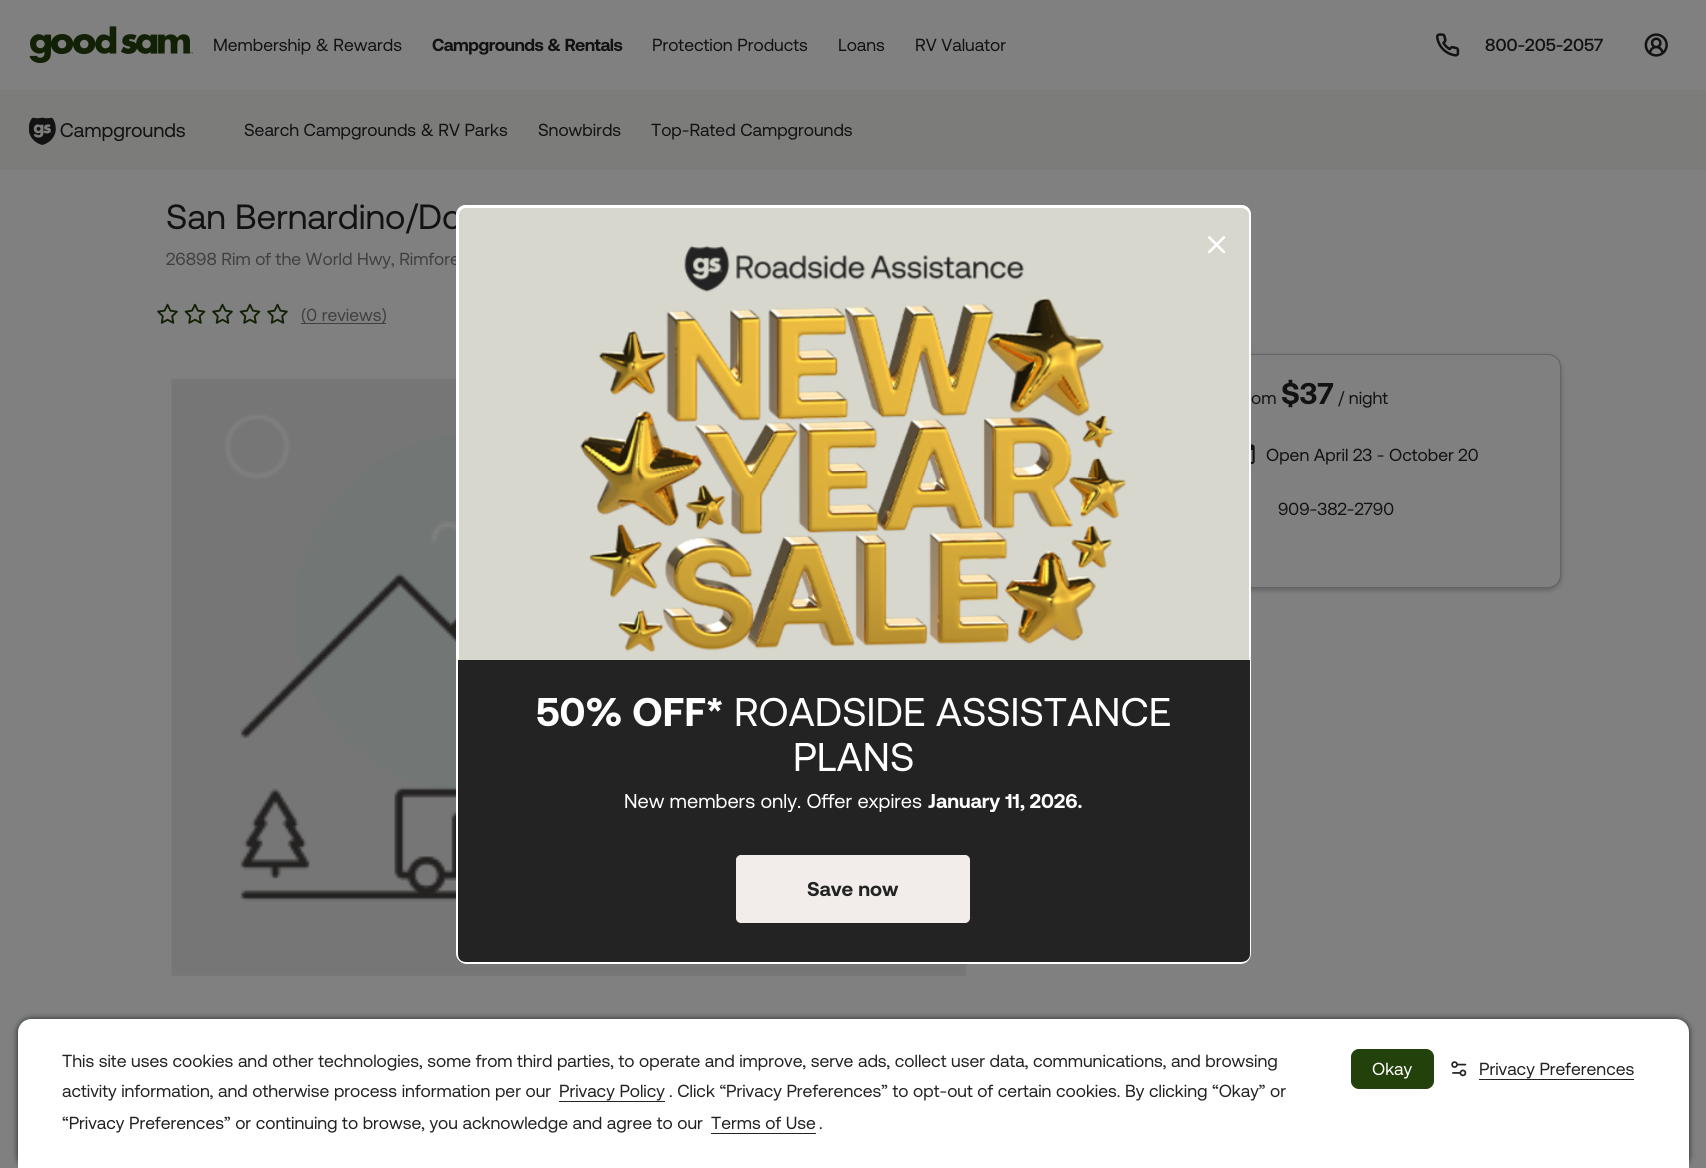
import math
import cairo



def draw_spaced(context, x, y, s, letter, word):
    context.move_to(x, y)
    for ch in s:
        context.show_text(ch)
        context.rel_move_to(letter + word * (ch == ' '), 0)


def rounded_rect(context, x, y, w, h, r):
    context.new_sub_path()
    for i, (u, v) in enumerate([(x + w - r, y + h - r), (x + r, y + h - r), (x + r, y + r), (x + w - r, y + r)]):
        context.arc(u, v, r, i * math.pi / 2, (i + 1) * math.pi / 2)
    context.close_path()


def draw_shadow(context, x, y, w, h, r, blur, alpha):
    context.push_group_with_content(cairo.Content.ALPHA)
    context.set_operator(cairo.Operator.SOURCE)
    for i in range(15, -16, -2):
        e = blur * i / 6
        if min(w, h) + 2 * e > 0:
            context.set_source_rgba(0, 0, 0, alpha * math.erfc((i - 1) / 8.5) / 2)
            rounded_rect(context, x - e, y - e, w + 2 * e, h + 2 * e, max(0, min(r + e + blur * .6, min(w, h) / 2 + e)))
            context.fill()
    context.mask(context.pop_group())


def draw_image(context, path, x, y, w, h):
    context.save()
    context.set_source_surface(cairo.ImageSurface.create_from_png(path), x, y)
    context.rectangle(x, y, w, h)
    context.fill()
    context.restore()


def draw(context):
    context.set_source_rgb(128 / 255, 128 / 255, 128 / 255)
    context.paint()
    draw_image(context, "images/1.png", 29, 26, 164, 37)
    draw_image(context, "images/2.png", 1436, 33, 24, 24)
    draw_image(context, "images/3.png", 1644, 33, 24, 24)
    context.set_source_rgb(124 / 255, 124 / 255, 123 / 255)
    context.rectangle(0, 90, 1706, 80)
    context.fill()
    draw_image(context, "images/4.png", 29, 117, 156, 28)
    draw_image(context, "images/5.png", 157, 303, 21, 21)
    draw_image(context, "images/6.png", 184, 303, 22, 21)
    draw_image(context, "images/5.png", 212, 303, 21, 21)
    draw_image(context, "images/6.png", 239, 303, 22, 21)
    draw_image(context, "images/5.png", 267, 303, 21, 21)
    context.set_source_rgb(64 / 255, 64 / 255, 64 / 255)
    context.rectangle(301, 323, 85, 1)
    context.fill()
    draw_image(context, "images/7.png", 171, 378, 796, 599)
    context.set_source_rgb(0, 0, 0)
    draw_shadow(context, 1215, 356, 346, 234, 13, 2.5, 0.25)
    context.set_source_rgb(128 / 255, 128 / 255, 128 / 255)
    rounded_rect(context, 1215.5, 354.5, 345, 233, 12.5)
    context.fill_preserve()
    context.set_source_rgb(96 / 255, 99 / 255, 103 / 255)
    context.set_line_width(1)
    context.stroke()
    draw_image(context, "images/8.png", 1251, 444, 4, 21)
    context.set_source_rgb(35 / 255, 35 / 255, 35 / 255)
    context.new_path()
    context.move_to(456, 660)
    context.line_to(1251, 660)
    context.line_to(1251, 954)
    context.curve_to(1251, 959.5, 1246.5, 964, 1241, 964)
    context.line_to(466, 964)
    context.curve_to(460.5, 964, 456, 959.5, 456, 954)
    context.close_path()
    context.fill()
    context.set_source_rgb(1, 1, 1)
    context.set_fill_rule(cairo.FillRule.EVEN_ODD)
    context.new_path()
    context.move_to(456, 660)
    context.line_to(1251, 660)
    context.line_to(1251, 954)
    context.curve_to(1251, 959, 1247, 964, 1241, 964)
    context.line_to(466, 964)
    context.curve_to(461, 964, 456, 959, 456, 954)
    context.close_path()
    context.move_to(458, 660)
    context.line_to(1250, 660)
    context.line_to(1250, 954)
    context.curve_to(1250, 959, 1246, 962, 1241, 962)
    context.line_to(466, 962)
    context.curve_to(461, 962, 458, 959, 458, 954)
    context.close_path()
    context.fill()
    context.set_source_rgb(242 / 255, 237 / 255, 235 / 255)
    rounded_rect(context, 736.5, 855.5, 233, 67, 4.5)
    context.fill_preserve()
    context.stroke()
    context.set_source_rgb(25 / 255, 34 / 255, 36 / 255)
    draw_shadow(context, 18, 1019, 1671, 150, 13, 3, 1)
    context.set_source_rgb(1, 1, 1)
    context.new_path()
    context.move_to(31, 1019)
    context.line_to(1676, 1019)
    context.curve_to(1683, 1019, 1689, 1025, 1689, 1032)
    context.line_to(1689, 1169)
    context.line_to(18, 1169)
    context.line_to(18, 1032)
    context.curve_to(18, 1025, 24, 1019, 31, 1019)
    context.close_path()
    context.fill()
    context.set_source_rgb(35 / 255, 35 / 255, 35 / 255)
    context.rectangle(559, 1101, 106, 1)
    context.fill()
    context.rectangle(711, 1133, 105, 1)
    context.fill()
    context.set_source_rgb(35 / 255, 65 / 255, 10 / 255)
    rounded_rect(context, 1351.5, 1049.5, 82, 39, 7.5)
    context.fill_preserve()
    context.stroke()
    draw_image(context, "images/11.png", 1451, 1061, 16, 16)
    context.set_source_rgb(35 / 255, 35 / 255, 35 / 255)
    context.rectangle(1479, 1079, 155, 1)
    context.fill()
    context.select_font_face("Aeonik")
    context.set_font_size(17.5)
    context.set_source_rgb(18 / 255, 18 / 255, 18 / 255)
    context.move_to(213, 51)
    context.show_text("Membership & Rewards")
    context.select_font_face("Aeonik", cairo.FontSlant.NORMAL, cairo.FontWeight.BOLD)
    draw_spaced(context, 432, 51, "Campgrounds & Rentals", -0.5, 0)
    context.select_font_face("Aeonik")
    context.move_to(652, 51)
    context.show_text("Protection Products")
    context.move_to(838, 51)
    context.show_text("Loans")
    context.move_to(915, 51)
    context.show_text("RV Valuator")
    context.select_font_face("Aeonik Medium")
    context.move_to(1485, 51)
    context.show_text("800-205-2057")
    context.select_font_face("Aeonik")
    context.move_to(244, 136)
    context.show_text("Search Campgrounds & RV Parks")
    context.move_to(538, 136)
    context.show_text("Snowbirds")
    context.move_to(651, 136)
    context.show_text("Top-Rated Campgrounds")
    context.set_font_size(35)
    context.move_to(166, 229)
    context.show_text("San Bernardino/Do")
    context.set_font_size(17.5)
    context.set_source_rgb(64 / 255, 64 / 255, 64 / 255)
    context.move_to(166, 265)
    context.show_text("26898 Rim of the World Hwy, Rimfore")
    context.move_to(301, 321)
    context.show_text("(0 reviews)")
    context.set_source_rgb(18 / 255, 18 / 255, 18 / 255)
    context.move_to(1251, 404)
    context.show_text("om")
    context.select_font_face("Aeonik", cairo.FontSlant.NORMAL, cairo.FontWeight.BOLD)
    context.set_font_size(30)
    context.move_to(1281, 404)
    context.show_text("$37")
    context.select_font_face("Aeonik")
    context.set_font_size(17.5)
    context.move_to(1338, 404)
    context.show_text("/ night")
    context.move_to(1266, 461)
    context.show_text("Open April 23 - October 20")
    context.move_to(1278, 515)
    context.show_text("909-382-2790")
    context.set_source_rgb(215 / 255, 215 / 255, 205 / 255)
    context.new_path()
    context.move_to(466, 205)
    context.line_to(1241, 205)
    context.curve_to(1246.5, 205, 1251, 209.5, 1251, 215)
    context.line_to(1251, 660)
    context.line_to(456, 660)
    context.line_to(456, 215)
    context.curve_to(456, 209.5, 460.5, 205, 466, 205)
    context.close_path()
    context.fill()
    context.set_source_rgb(1, 1, 1)
    context.new_path()
    context.move_to(466, 205)
    context.line_to(1241, 205)
    context.curve_to(1247, 205, 1251, 209, 1251, 215)
    context.line_to(1251, 660)
    context.line_to(456, 660)
    context.line_to(456, 215)
    context.curve_to(456, 209, 461, 205, 466, 205)
    context.close_path()
    context.move_to(466, 208)
    context.line_to(1241, 208)
    context.curve_to(1245, 208, 1249, 211, 1249, 215)
    context.line_to(1249, 660)
    context.line_to(459, 660)
    context.line_to(459, 215)
    context.curve_to(459, 211, 462, 208, 466, 208)
    context.close_path()
    context.fill()
    draw_image(context, "images/9.png", 580, 245, 547, 408)
    draw_image(context, "images/10.png", 1208, 236, 18, 18)
    context.select_font_face("Aeonik", cairo.FontSlant.NORMAL, cairo.FontWeight.BOLD)
    context.set_font_size(40)
    context.move_to(536, 726)
    context.show_text("50% OFF*")
    context.select_font_face("Aeonik")
    context.move_to(734, 726)
    context.show_text("ROADSIDE ASSISTANCE")
    context.move_to(793, 771)
    context.show_text("PLANS")
    context.set_font_size(20)
    context.move_to(624, 808)
    context.show_text("New members only. Offer expires")
    context.select_font_face("Aeonik", cairo.FontSlant.NORMAL, cairo.FontWeight.BOLD)
    context.move_to(928, 808)
    context.show_text("January 11, 2026.")
    context.set_source_rgb(35 / 255, 35 / 255, 35 / 255)
    context.move_to(807, 896)
    context.show_text("Save now")
    context.select_font_face("Aeonik")
    context.set_font_size(17.5)
    context.move_to(62, 1067)
    context.show_text("This site uses cookies and other technologies, some from third parties, to operate and improve, serve ads, collect user data, communications, and browsing")
    context.move_to(62, 1097)
    context.show_text("activity information, and otherwise process information per our")
    context.move_to(559, 1097)
    context.show_text("Privacy Policy")
    context.move_to(669, 1097)
    context.show_text(". Click “Privacy Preferences” to opt-out of certain cookies. By clicking “Okay” or")
    context.move_to(62, 1129)
    context.show_text("“Privacy Preferences” or continuing to browse, you acknowledge and agree to our")
    context.move_to(711, 1129)
    context.show_text("Terms of Use")
    context.move_to(819, 1129)
    context.show_text(".")
    context.set_source_rgb(1, 1, 1)
    context.move_to(1372, 1075)
    context.show_text("Okay")
    context.set_source_rgb(35 / 255, 35 / 255, 35 / 255)
    context.move_to(1479, 1075)
    context.show_text("Privacy Preferences")


surface = cairo.ImageSurface(cairo.Format.RGB24, 1706, 1168)
context = cairo.Context(surface)
options = cairo.FontOptions()
options.set_hint_metrics(cairo.HintMetrics.OFF)
options.set_hint_style(cairo.HintStyle.NONE)
context.set_font_options(options)
context.set_miter_limit(4)
draw(context)
surface.write_to_png("out.png")
